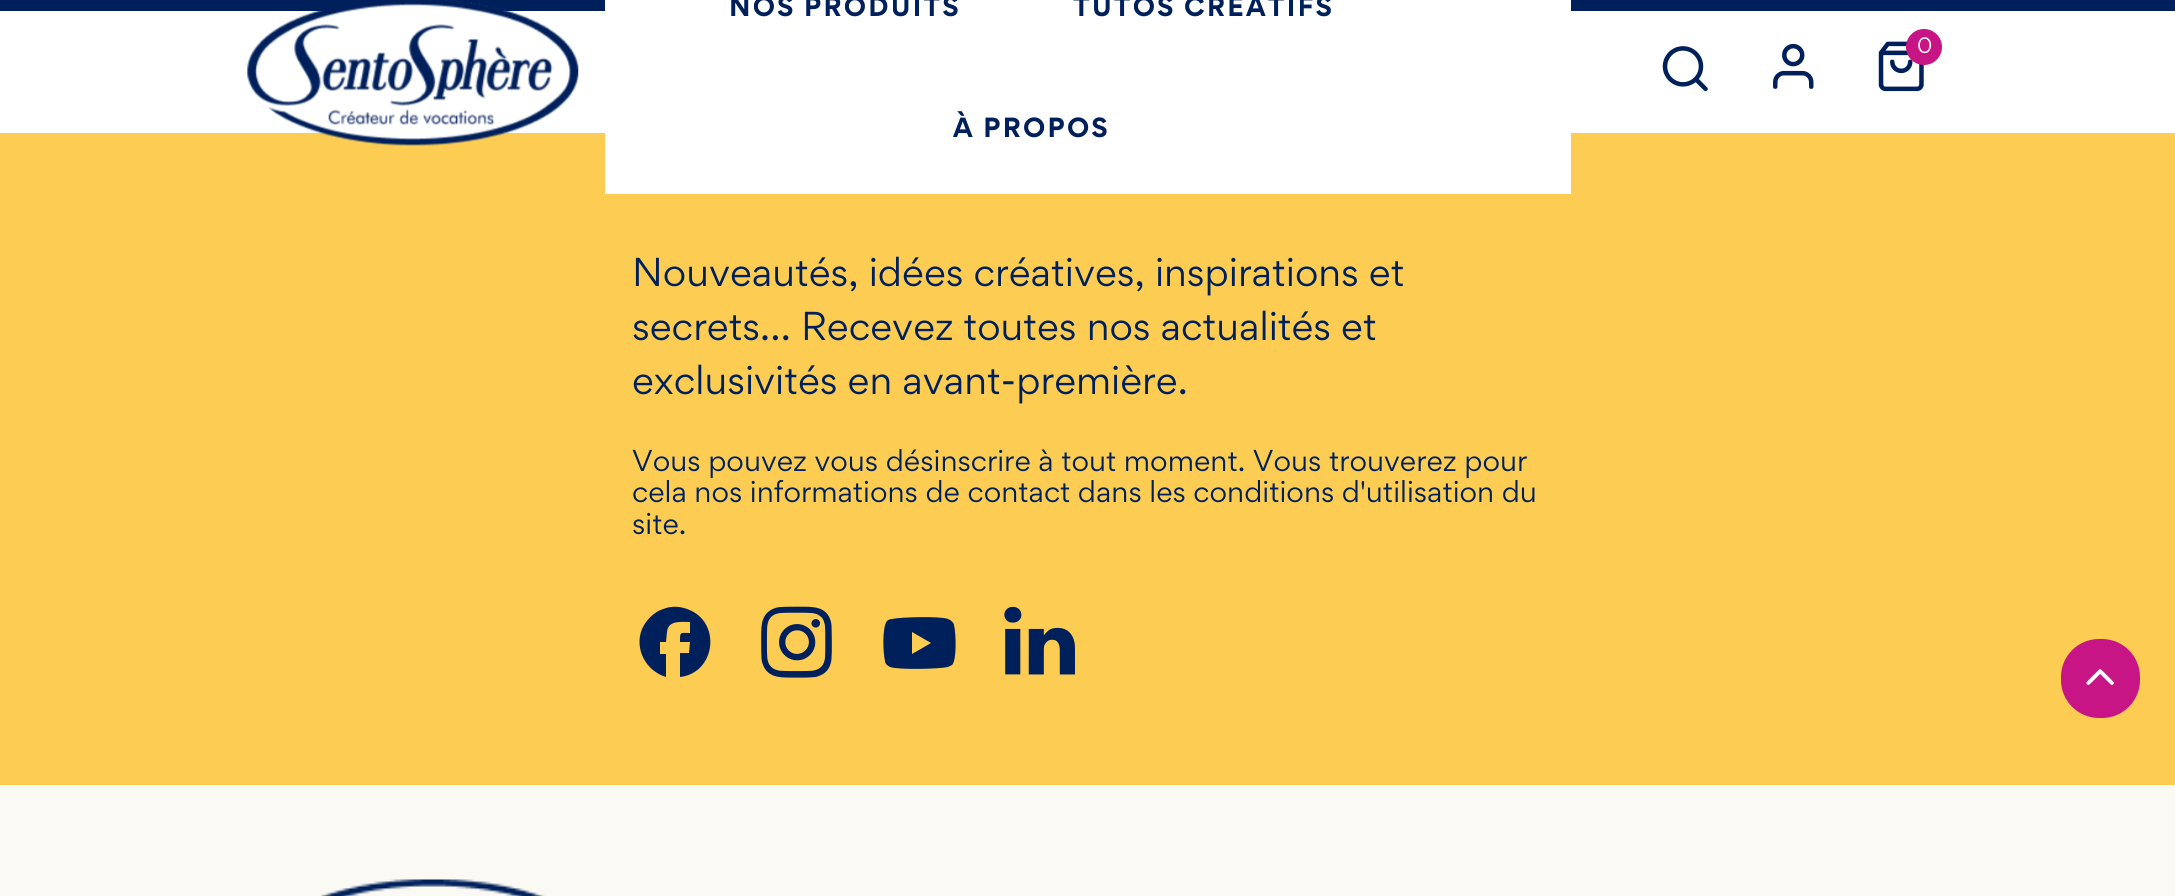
import math
import cairo



def draw_spaced(context, x, y, s, letter, word):
    context.move_to(x, y)
    for ch in s:
        context.show_text(ch)
        context.rel_move_to(letter + word * (ch == ' '), 0)


def rounded_rect(context, x, y, w, h, r):
    context.new_sub_path()
    for i, (u, v) in enumerate([(x + w - r, y + h - r), (x + r, y + h - r), (x + r, y + r), (x + w - r, y + r)]):
        context.arc(u, v, r, i * math.pi / 2, (i + 1) * math.pi / 2)
    context.close_path()


def draw_image(context, path, x, y, w, h):
    context.save()
    context.set_source_surface(cairo.ImageSurface.create_from_png(path), x, y)
    context.rectangle(x, y, w, h)
    context.fill()
    context.restore()


def draw(context):
    context.set_source_rgb(251 / 255, 249 / 255, 243 / 255)
    context.paint()
    context.set_source_rgb(1, 1, 1)
    context.rectangle(0, 11, 2175, 122)
    context.fill()
    context.set_source_rgb(0, 32 / 255, 92 / 255)
    context.rectangle(0, 0, 2175, 11)
    context.fill()
    context.set_source_rgb(253 / 255, 205 / 255, 83 / 255)
    context.rectangle(0, 133, 2175, 652)
    context.fill()
    draw_image(context, "images/1.png", 247, 0, 332, 146)
    context.set_source_rgb(1, 1, 1)
    context.rectangle(605, 0, 966, 194)
    context.fill()
    draw_image(context, "images/2.png", 1662, 46, 46, 46)
    draw_image(context, "images/3.png", 1773, 43, 41, 46)
    draw_image(context, "images/4.png", 1878, 41, 46, 51)
    context.set_source_rgb(199 / 255, 21 / 255, 133 / 255)
    context.arc(1924, 47, 18, 0, 2 * math.pi)
    context.fill()
    context.set_source_rgb(0, 32 / 255, 92 / 255)
    context.new_path()
    context.move_to(680, 677)
    context.line_to(680, 653)
    context.line_to(689, 653)
    context.line_to(690, 642)
    context.line_to(680, 642)
    context.curve_to(680, 631, 680, 633, 690, 633)
    context.line_to(690, 622)
    context.curve_to(681, 622, 668, 620, 667, 632)
    context.line_to(666, 642)
    context.line_to(660, 642)
    context.line_to(660, 654)
    context.line_to(666, 654)
    context.line_to(666, 677)
    context.curve_to(646, 671, 634, 649, 642, 629)
    context.curve_to(646, 620, 654, 612, 663, 609)
    context.curve_to(671, 606, 679, 606, 687, 609)
    context.curve_to(722, 621, 716, 673, 680, 677)
    context.close_path()
    context.fill()
    draw_image(context, "images/5.png", 761, 606, 71, 72)
    context.new_path()
    context.move_to(954, 625)
    context.curve_to(954, 623, 951, 620, 948, 619)
    context.curve_to(941, 616, 900, 617, 892, 619)
    context.curve_to(890, 619, 888, 620, 887, 621)
    context.curve_to(882, 627, 883, 653, 885, 661)
    context.curve_to(885, 664, 888, 666, 890, 667)
    context.curve_to(898, 670, 940, 669, 948, 667)
    context.line_to(952, 665)
    context.curve_to(957, 660, 956, 633, 954, 625)
    context.close_path()
    context.move_to(912, 654)
    context.line_to(912, 632)
    context.line_to(931, 643)
    context.close_path()
    context.fill()
    draw_image(context, "images/6.png", 1004, 606, 71, 69)
    draw_image(context, "images/7.png", 320, 879, 225, 17)
    context.set_source_rgb(199 / 255, 21 / 255, 133 / 255)
    rounded_rect(context, 2061, 639, 79, 79, 38)
    context.fill()
    draw_image(context, "images/8.png", 2086, 669, 28, 16)
    context.select_font_face("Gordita", cairo.FontSlant.NORMAL, cairo.FontWeight.BOLD)
    context.set_font_size(24.75)
    context.set_source_rgb(0, 32 / 255, 92 / 255)
    draw_spaced(context, 729, 16, "NOS PRODUITS", 2.25, 0)
    draw_spaced(context, 1073, 16, "TUTOS CRÉATIFS", 2.25, 0)
    draw_spaced(context, 953, 137, "À PROPOS", 2.25, 0)
    context.select_font_face("Gordita")
    context.set_font_size(20)
    context.set_source_rgb(1, 1, 1)
    context.move_to(1917, 53)
    context.show_text("0")
    context.set_font_size(36)
    context.set_source_rgb(0, 32 / 255, 92 / 255)
    context.move_to(632, 286)
    context.show_text("Nouveautés, idées créatives, inspirations et")
    context.move_to(632, 340)
    context.show_text("secrets… Recevez toutes nos actualités et")
    context.move_to(632, 394)
    context.show_text("exclusivités en avant-première.")
    context.set_font_size(27)
    context.move_to(632, 471)
    context.show_text("Vous pouvez vous désinscrire à tout moment. Vous trouverez pour")
    context.move_to(632, 502)
    context.show_text("cela nos informations de contact dans les conditions d'utilisation du")
    context.move_to(632, 534)
    context.show_text("site.")


surface = cairo.ImageSurface(cairo.Format.RGB24, 2175, 896)
context = cairo.Context(surface)
options = cairo.FontOptions()
options.set_hint_metrics(cairo.HintMetrics.OFF)
options.set_hint_style(cairo.HintStyle.NONE)
context.set_font_options(options)
context.set_miter_limit(4)
draw(context)
surface.write_to_png("out.png")
